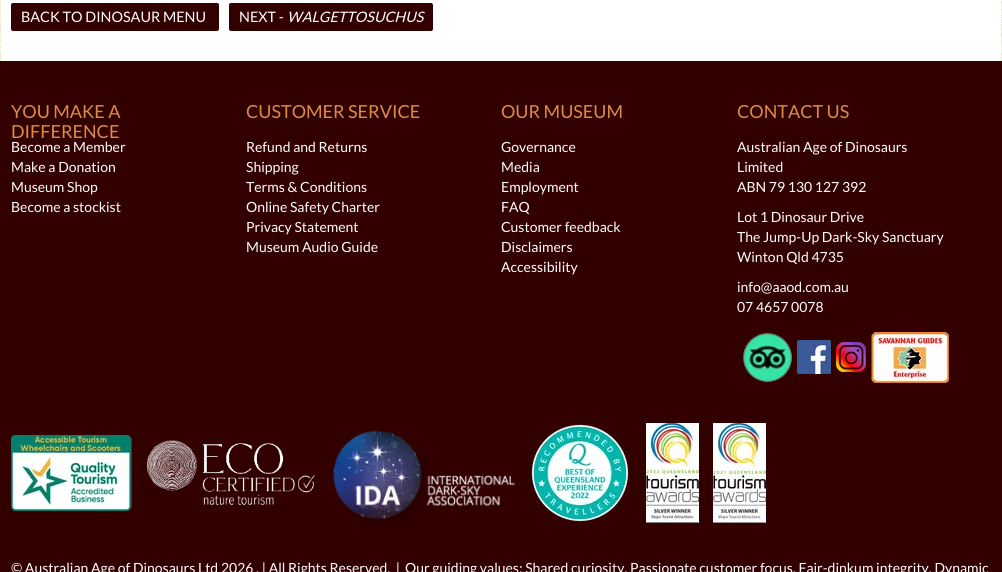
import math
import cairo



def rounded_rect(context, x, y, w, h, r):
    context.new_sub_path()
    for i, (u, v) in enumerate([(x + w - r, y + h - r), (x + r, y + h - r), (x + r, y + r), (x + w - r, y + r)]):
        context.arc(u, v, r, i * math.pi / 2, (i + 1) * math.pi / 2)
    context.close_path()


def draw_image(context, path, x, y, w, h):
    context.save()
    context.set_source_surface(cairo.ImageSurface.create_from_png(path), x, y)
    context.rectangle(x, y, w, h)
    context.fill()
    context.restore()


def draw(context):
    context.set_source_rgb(1, 1, 1)
    context.paint()
    draw_image(context, "images/1.png", 0, 0, 1002, 61)
    context.set_source_rgb(1, 1, 1)
    context.rectangle(1, 0, 1000, 61)
    context.fill()
    context.set_source_rgb(51 / 255, 0, 0)
    rounded_rect(context, 11, 3, 208, 28, 2)
    context.fill()
    rounded_rect(context, 229, 3, 204, 28, 2)
    context.fill()
    context.rectangle(0, 61, 1002, 511)
    context.fill()
    draw_image(context, "images/2.png", 743, 333, 49, 49)
    draw_image(context, "images/3.png", 797, 340, 34, 34)
    draw_image(context, "images/4.png", 836, 342, 30, 30)
    draw_image(context, "images/5.png", 871, 332, 78, 51)
    draw_image(context, "images/6.png", 11, 435, 121, 76)
    draw_image(context, "images/7.png", 147, 440, 168, 65)
    draw_image(context, "images/8.png", 333, 430, 182, 97)
    draw_image(context, "images/9.png", 531, 424, 98, 98)
    draw_image(context, "images/10.png", 646, 423, 53, 100)
    draw_image(context, "images/11.png", 713, 423, 53, 100)
    context.select_font_face("Lato")
    context.set_font_size(14.4)
    context.set_source_rgb(1, 1, 1)
    context.move_to(21, 22)
    context.show_text("BACK TO DINOSAUR MENU")
    context.move_to(239, 22)
    context.show_text("NEXT -")
    context.select_font_face("Lato", cairo.FontSlant.ITALIC)
    context.move_to(287, 22)
    context.show_text("WALGETTOSUCHUS")
    context.select_font_face("Lato")
    context.set_font_size(18)
    context.set_source_rgb(219 / 255, 140 / 255, 71 / 255)
    context.move_to(11, 118)
    context.show_text("YOU MAKE A")
    context.move_to(11, 138)
    context.show_text("DIFFERENCE")
    context.set_font_size(14)
    context.set_source_rgb(1, 1, 1)
    context.move_to(11, 152)
    context.show_text("Become a Member")
    context.move_to(11, 172)
    context.show_text("Make a Donation")
    context.move_to(11, 192)
    context.show_text("Museum Shop")
    context.move_to(11, 212)
    context.show_text("Become a stockist")
    context.set_font_size(18)
    context.set_source_rgb(219 / 255, 140 / 255, 71 / 255)
    context.move_to(246, 118)
    context.show_text("CUSTOMER SERVICE")
    context.set_font_size(14)
    context.set_source_rgb(1, 1, 1)
    context.move_to(246, 152)
    context.show_text("Refund and Returns")
    context.move_to(246, 172)
    context.show_text("Shipping")
    context.move_to(246, 192)
    context.show_text("Terms & Conditions")
    context.move_to(246, 212)
    context.show_text("Online Safety Charter")
    context.move_to(246, 232)
    context.show_text("Privacy Statement")
    context.move_to(246, 252)
    context.show_text("Museum Audio Guide")
    context.set_font_size(18)
    context.set_source_rgb(219 / 255, 140 / 255, 71 / 255)
    context.move_to(501, 118)
    context.show_text("OUR MUSEUM")
    context.set_font_size(14)
    context.set_source_rgb(1, 1, 1)
    context.move_to(501, 152)
    context.show_text("Governance")
    context.move_to(501, 172)
    context.show_text("Media")
    context.move_to(501, 192)
    context.show_text("Employment")
    context.move_to(501, 212)
    context.show_text("FAQ")
    context.move_to(501, 232)
    context.show_text("Customer feedback")
    context.move_to(501, 252)
    context.show_text("Disclaimers")
    context.move_to(501, 272)
    context.show_text("Accessibility")
    context.set_font_size(18)
    context.set_source_rgb(219 / 255, 140 / 255, 71 / 255)
    context.move_to(737, 118)
    context.show_text("CONTACT US")
    context.set_font_size(14)
    context.set_source_rgb(1, 1, 1)
    context.move_to(737, 152)
    context.show_text("Australian Age of Dinosaurs")
    context.move_to(737, 172)
    context.show_text("Limited")
    context.move_to(737, 192)
    context.show_text("ABN 79 130 127 392")
    context.move_to(737, 222)
    context.show_text("Lot 1 Dinosaur Drive")
    context.move_to(737, 242)
    context.show_text("The Jump-Up Dark-Sky Sanctuary")
    context.move_to(737, 262)
    context.show_text("Winton Qld 4735")
    context.move_to(737, 292)
    context.show_text("info@aaod.com.au")
    context.move_to(737, 312)
    context.show_text("07 4657 0078")
    context.move_to(11, 573)
    context.show_text("© Australian Age of Dinosaurs Ltd 2026 . | All Rights Reserved.  |")
    context.move_to(405, 573)
    context.show_text("Our guiding values: Shared curiosity, Passionate customer focus, Fair-dinkum integrity, Dynamic")


surface = cairo.ImageSurface(cairo.Format.RGB24, 1002, 572)
context = cairo.Context(surface)
options = cairo.FontOptions()
options.set_hint_metrics(cairo.HintMetrics.OFF)
options.set_hint_style(cairo.HintStyle.NONE)
context.set_font_options(options)
context.set_miter_limit(4)
draw(context)
surface.write_to_png("out.png")
